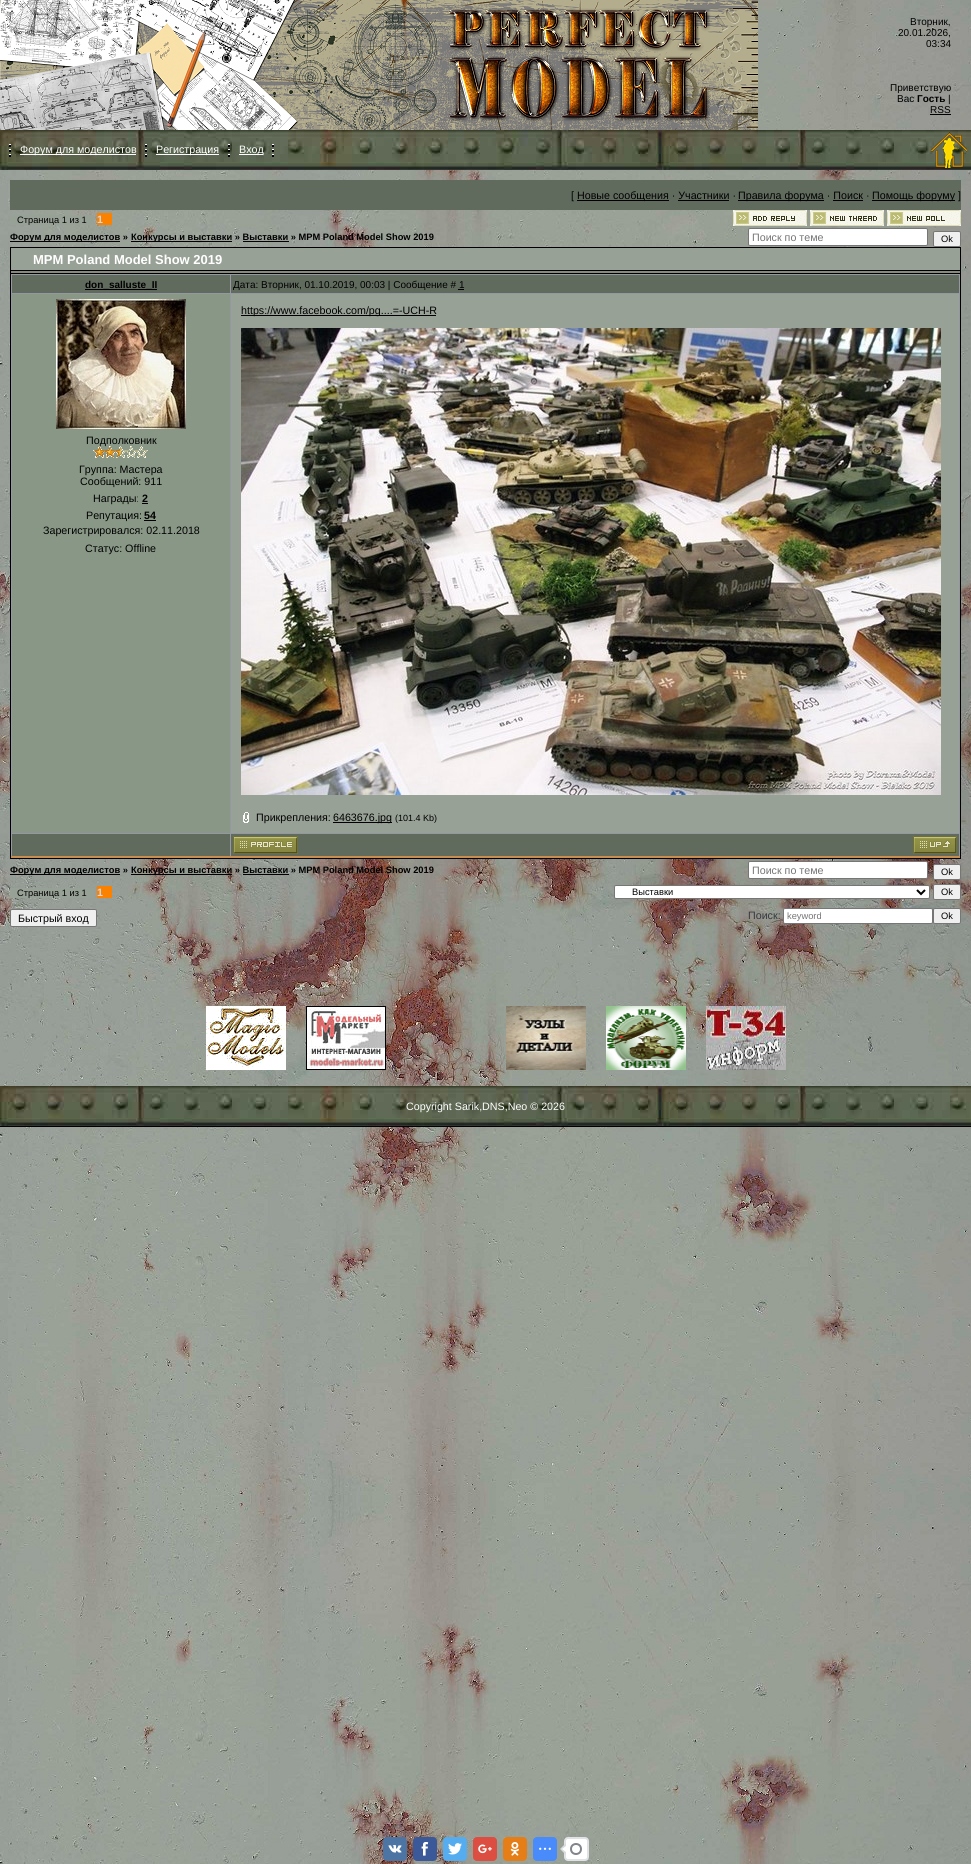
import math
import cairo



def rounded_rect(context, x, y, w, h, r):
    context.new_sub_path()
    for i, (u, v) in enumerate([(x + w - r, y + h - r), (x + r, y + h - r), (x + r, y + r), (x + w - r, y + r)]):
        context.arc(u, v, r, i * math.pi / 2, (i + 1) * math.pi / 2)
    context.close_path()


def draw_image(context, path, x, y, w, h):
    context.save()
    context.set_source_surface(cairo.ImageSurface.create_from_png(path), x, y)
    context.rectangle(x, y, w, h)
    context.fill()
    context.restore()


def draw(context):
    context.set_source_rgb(1, 1, 1)
    context.paint()
    draw_image(context, "images/1.png", 0, 0, 971, 1864)
    draw_image(context, "images/2.png", 0, 0, 758, 130)
    context.set_source_rgb(0, 0, 0)
    context.rectangle(930, 114, 21, 1)
    context.fill()
    draw_image(context, "images/3.png", 0, 130, 971, 40)
    draw_image(context, "images/4.png", 9, 144, 2, 13)
    context.set_source_rgb(1, 1, 1)
    context.rectangle(20, 154, 116, 1)
    context.fill()
    draw_image(context, "images/5.png", 145, 144, 2, 13)
    context.rectangle(156, 154, 63, 1)
    context.fill()
    draw_image(context, "images/6.png", 228, 144, 2, 13)
    context.rectangle(239, 154, 24, 1)
    context.fill()
    draw_image(context, "images/7.png", 272, 144, 2, 13)
    draw_image(context, "images/8.png", 931, 132, 36, 36)
    context.set_source_rgb(96 / 255, 107 / 255, 94 / 255)
    context.rectangle(10, 180, 951, 30)
    context.fill()
    context.set_source_rgb(0, 0, 0)
    context.rectangle(577, 200, 92, 1)
    context.fill()
    context.rectangle(738, 200, 86, 1)
    context.fill()
    context.rectangle(872, 200, 83, 1)
    context.fill()
    context.rectangle(678, 200, 51, 1)
    context.fill()
    context.rectangle(833, 200, 30, 1)
    context.fill()
    context.set_source_rgb(152 / 255, 161 / 255, 150 / 255)
    context.rectangle(10, 215, 84, 10)
    context.fill()
    context.set_source_rgb(251 / 255, 129 / 255, 0)
    context.rectangle(97, 213, 15, 12)
    context.fill()
    draw_image(context, "images/9.png", 733, 210, 74, 16)
    draw_image(context, "images/10.png", 810, 210, 74, 16)
    draw_image(context, "images/11.png", 887, 210, 74, 16)
    context.set_source_rgb(0, 0, 0)
    context.rectangle(10, 241, 110, 1)
    context.fill()
    context.rectangle(131, 241, 101, 1)
    context.fill()
    context.rectangle(243, 241, 46, 1)
    context.fill()
    context.set_source_rgb(1, 1, 1)
    rounded_rect(context, 748.5, 228.5, 179, 17, 1.5)
    context.fill_preserve()
    context.set_source_rgb(118 / 255, 118 / 255, 118 / 255)
    context.set_line_width(1)
    context.stroke()
    context.set_source_rgb(239 / 255, 239 / 255, 239 / 255)
    rounded_rect(context, 933.5, 231.5, 27, 15, 1.5)
    context.fill_preserve()
    context.set_source_rgb(118 / 255, 118 / 255, 118 / 255)
    context.stroke()
    context.set_source_rgb(0, 0, 0)
    context.rectangle(10, 247, 951, 612)
    context.fill()
    context.set_source_rgb(152 / 255, 161 / 255, 150 / 255)
    context.rectangle(11, 248, 949, 22)
    context.fill()
    context.set_source_rgb(135 / 255, 137 / 255, 127 / 255)
    context.rectangle(11, 271, 949, 2)
    context.fill()
    context.set_source_rgb(251 / 255, 129 / 255, 0)
    context.rectangle(11, 857, 949, 1)
    context.fill()
    context.set_source_rgb(148 / 255, 152 / 255, 161 / 255)
    context.rectangle(11, 274, 949, 583)
    context.fill()
    context.set_source_rgb(96 / 255, 107 / 255, 94 / 255)
    context.rectangle(12, 275, 218, 18)
    context.fill()
    context.set_source_rgb(0, 0, 0)
    context.rectangle(85, 289, 72, 1)
    context.fill()
    context.set_source_rgb(96 / 255, 107 / 255, 94 / 255)
    context.rectangle(231, 275, 728, 18)
    context.fill()
    context.set_source_rgb(0, 0, 0)
    context.rectangle(458, 289, 6, 1)
    context.fill()
    context.set_source_rgb(137 / 255, 152 / 255, 134 / 255)
    context.rectangle(12, 294, 218, 539)
    context.fill()
    draw_image(context, "images/12.png", 56, 299, 130, 130)
    context.set_source_rgb(0, 0, 0)
    context.rectangle(142, 503, 6, 1)
    context.fill()
    context.rectangle(144, 520, 12, 1)
    context.fill()
    context.set_source_rgb(152 / 255, 161 / 255, 150 / 255)
    context.rectangle(231, 294, 728, 539)
    context.fill()
    context.set_source_rgb(0, 0, 0)
    context.rectangle(241, 315, 195, 1)
    context.fill()
    draw_image(context, "images/14.png", 241, 328, 700, 467)
    draw_image(context, "images/15.png", 243, 812, 6, 11)
    context.rectangle(333, 822, 59, 1)
    context.fill()
    context.set_source_rgb(96 / 255, 107 / 255, 94 / 255)
    context.rectangle(12, 834, 218, 22)
    context.fill()
    context.rectangle(231, 834, 728, 22)
    context.fill()
    draw_image(context, "images/16.png", 233, 836, 65, 18)
    draw_image(context, "images/17.png", 913, 836, 44, 18)
    context.set_source_rgb(0, 0, 0)
    context.rectangle(10, 874, 110, 1)
    context.fill()
    context.rectangle(131, 874, 101, 1)
    context.fill()
    context.rectangle(243, 874, 46, 1)
    context.fill()
    context.set_source_rgb(1, 1, 1)
    rounded_rect(context, 748.5, 861.5, 179, 17, 1.5)
    context.fill_preserve()
    context.set_source_rgb(118 / 255, 118 / 255, 118 / 255)
    context.stroke()
    context.set_source_rgb(239 / 255, 239 / 255, 239 / 255)
    rounded_rect(context, 933.5, 864.5, 27, 15, 1.5)
    context.fill_preserve()
    context.set_source_rgb(118 / 255, 118 / 255, 118 / 255)
    context.stroke()
    context.set_source_rgb(152 / 255, 161 / 255, 150 / 255)
    context.rectangle(10, 888, 84, 10)
    context.fill()
    context.set_source_rgb(251 / 255, 129 / 255, 0)
    context.rectangle(97, 886, 15, 12)
    context.fill()
    context.set_source_rgb(1, 1, 1)
    rounded_rect(context, 614.5, 885.5, 315, 13, 1.5)
    context.fill_preserve()
    context.set_source_rgb(118 / 255, 118 / 255, 118 / 255)
    context.stroke()
    context.new_path()
    context.move_to(917, 890)
    context.line_to(921, 894)
    context.line_to(925, 890)
    context.set_source_rgb(0, 0, 0)
    context.set_line_width(2)
    context.stroke()
    context.set_source_rgb(239 / 255, 239 / 255, 239 / 255)
    rounded_rect(context, 933.5, 884.5, 27, 15, 1.5)
    context.fill_preserve()
    context.set_source_rgb(118 / 255, 118 / 255, 118 / 255)
    context.set_line_width(1)
    context.stroke()
    context.set_source_rgb(239 / 255, 239 / 255, 239 / 255)
    rounded_rect(context, 10.5, 909.5, 86, 17, 1.5)
    context.fill_preserve()
    context.set_source_rgb(118 / 255, 118 / 255, 118 / 255)
    context.stroke()
    context.set_source_rgb(1, 1, 1)
    rounded_rect(context, 783.5, 908.5, 149, 15, 1.5)
    context.fill_preserve()
    context.set_source_rgb(118 / 255, 118 / 255, 118 / 255)
    context.stroke()
    context.set_source_rgb(239 / 255, 239 / 255, 239 / 255)
    rounded_rect(context, 933.5, 908.5, 27, 15, 1.5)
    context.fill_preserve()
    context.set_source_rgb(118 / 255, 118 / 255, 118 / 255)
    context.stroke()
    draw_image(context, "images/18.png", 206, 1006, 80, 64)
    draw_image(context, "images/19.png", 306, 1006, 80, 64)
    draw_image(context, "images/20.png", 506, 1006, 80, 64)
    draw_image(context, "images/21.png", 606, 1006, 80, 64)
    draw_image(context, "images/22.png", 706, 1006, 80, 64)
    draw_image(context, "images/3.png", 0, 1086, 971, 40)
    context.set_source_rgb(0, 0, 0)
    context.rectangle(0, 1126, 971, 1)
    context.fill()
    context.set_source_rgb(77 / 255, 117 / 255, 163 / 255)
    rounded_rect(context, 383, 1837, 24, 24, 4)
    context.fill()
    draw_image(context, "images/23.png", 388, 1845, 14, 8)
    context.set_source_rgb(59 / 255, 89 / 255, 152 / 255)
    rounded_rect(context, 413, 1837, 24, 24, 4)
    context.fill()
    draw_image(context, "images/24.png", 421, 1842, 8, 14)
    context.set_source_rgb(85 / 255, 172 / 255, 238 / 255)
    rounded_rect(context, 443, 1837, 24, 24, 4)
    context.fill()
    draw_image(context, "images/25.png", 448, 1843, 14, 12)
    context.set_source_rgb(220 / 255, 78 / 255, 65 / 255)
    rounded_rect(context, 473, 1837, 24, 24, 4)
    context.fill()
    draw_image(context, "images/26.png", 478, 1844, 14, 10)
    context.set_source_rgb(230 / 255, 126 / 255, 23 / 255)
    rounded_rect(context, 503, 1837, 24, 24, 4)
    context.fill()
    draw_image(context, "images/27.png", 510, 1842, 9, 14)
    context.set_source_rgb(73 / 255, 139 / 255, 250 / 255)
    rounded_rect(context, 533, 1837, 24, 24, 4)
    context.fill()
    draw_image(context, "images/28.png", 539, 1847, 12, 3)
    context.set_source_rgb(1, 1, 1)
    rounded_rect(context, 565, 1838, 23, 22, 3)
    context.fill_preserve()
    context.set_source_rgb(224 / 255, 226 / 255, 230 / 255)
    context.set_line_width(2)
    context.stroke()
    context.set_source_rgb(216 / 255, 220 / 255, 222 / 255)
    context.new_path()
    context.move_to(566, 1843)
    context.line_to(566, 1855)
    context.line_to(560, 1849)
    context.close_path()
    context.fill()
    context.arc(576, 1849, 5, 0, 2 * math.pi)
    context.set_source_rgb(129 / 255, 133 / 255, 139 / 255)
    context.stroke()
    context.set_source_rgb(1, 1, 1)
    context.new_path()
    context.move_to(566, 1846)
    context.line_to(566, 1852)
    context.line_to(562, 1849)
    context.close_path()
    context.fill()
    context.select_font_face("Liberation Sans")
    context.set_font_size(10)
    context.set_source_rgb(0, 0, 0)
    context.move_to(910, 25)
    context.show_text("Вторник,")
    context.move_to(898, 36)
    context.show_text("20.01.2026,")
    context.move_to(926, 47)
    context.show_text("03:34")
    context.move_to(890, 91)
    context.show_text("Приветствую")
    context.move_to(897, 102)
    context.show_text("Вас")
    context.select_font_face("Liberation Sans", cairo.FontSlant.NORMAL, cairo.FontWeight.BOLD)
    context.move_to(917, 102)
    context.show_text("Гость")
    context.select_font_face("Liberation Sans")
    context.move_to(948, 102)
    context.show_text("|")
    context.move_to(930, 113)
    context.show_text("RSS")
    context.set_font_size(10.7)
    context.set_source_rgb(1, 1, 1)
    context.move_to(20, 153)
    context.show_text("Форум для моделистов")
    context.move_to(156, 153)
    context.show_text("Регистрация")
    context.move_to(239, 153)
    context.show_text("Вход")
    context.set_source_rgb(0, 0, 0)
    context.move_to(571, 199)
    context.show_text("[")
    context.move_to(577, 199)
    context.show_text("Новые сообщения · Участники ·")
    context.move_to(738, 199)
    context.show_text("Правила форума · Поиск ·")
    context.move_to(872, 199)
    context.show_text("Помощь форуму ]")
    context.set_font_size(9.3)
    context.move_to(17, 223)
    context.show_text("Страница 1 из 1")
    context.select_font_face("Liberation Sans", cairo.FontSlant.NORMAL, cairo.FontWeight.BOLD)
    context.set_font_size(10.7)
    context.set_source_rgb(217 / 255, 215 / 255, 219 / 255)
    context.move_to(97, 223)
    context.show_text("1")
    context.set_font_size(9.3)
    context.set_source_rgb(0, 0, 0)
    context.move_to(10, 240)
    context.show_text("Форум для моделистов »")
    context.move_to(131, 240)
    context.show_text("Конкурсы и выставки » Выставки » MPM Poland Model Show 2019")
    context.select_font_face("Liberation Sans")
    context.set_font_size(10.7)
    context.set_source_rgb(117 / 255, 117 / 255, 117 / 255)
    context.move_to(752, 241)
    context.show_text("Поиск по теме")
    context.set_font_size(9.3)
    context.set_source_rgb(0, 0, 0)
    context.move_to(941, 242)
    context.show_text("Ok")
    context.select_font_face("Liberation Sans", cairo.FontSlant.NORMAL, cairo.FontWeight.BOLD)
    context.set_font_size(13)
    context.set_source_rgb(1, 1, 1)
    context.move_to(33, 264)
    context.show_text("MPM Poland Model Show 2019")
    context.set_font_size(10)
    context.set_source_rgb(0, 0, 0)
    context.move_to(85, 288)
    context.show_text("don_salluste_II")
    context.select_font_face("Liberation Sans")
    context.move_to(233, 288)
    context.show_text("Дата: Вторник, 01.10.2019, 00:03 | Сообщение # 1")
    context.set_font_size(10.7)
    context.move_to(86, 444)
    context.show_text("Подполковник")
    draw_image(context, "images/13.png", 93, 446, 55, 12)
    context.move_to(79, 473)
    context.show_text("Группа: Мастера")
    context.move_to(80, 485)
    context.show_text("Сообщений: 911")
    context.move_to(93, 502)
    context.show_text("Награды:")
    context.select_font_face("Liberation Sans", cairo.FontSlant.NORMAL, cairo.FontWeight.BOLD)
    context.move_to(142, 502)
    context.show_text("2")
    context.select_font_face("Liberation Sans")
    context.move_to(86, 519)
    context.show_text("Репутация:")
    context.select_font_face("Liberation Sans", cairo.FontSlant.NORMAL, cairo.FontWeight.BOLD)
    context.move_to(144, 519)
    context.show_text("54")
    context.select_font_face("Liberation Sans")
    context.move_to(43, 534)
    context.show_text("Зарегистрировался: 02.11.2018")
    context.move_to(85, 552)
    context.show_text("Статус: Offline")
    context.move_to(241, 314)
    context.show_text("https://www.facebook.com/pg....=-UCH-R")
    context.move_to(256, 821)
    context.show_text("Прикрепления:")
    context.move_to(333, 821)
    context.show_text("6463676.jpg")
    context.set_font_size(9)
    context.move_to(395, 821)
    context.show_text("(101.4 Kb)")
    context.select_font_face("Liberation Sans", cairo.FontSlant.NORMAL, cairo.FontWeight.BOLD)
    context.set_font_size(9.3)
    context.move_to(10, 873)
    context.show_text("Форум для моделистов »")
    context.move_to(131, 873)
    context.show_text("Конкурсы и выставки » Выставки » MPM Poland Model Show 2019")
    context.select_font_face("Liberation Sans")
    context.set_font_size(10.7)
    context.set_source_rgb(117 / 255, 117 / 255, 117 / 255)
    context.move_to(752, 874)
    context.show_text("Поиск по теме")
    context.set_font_size(9.3)
    context.set_source_rgb(0, 0, 0)
    context.move_to(941, 875)
    context.show_text("Ok")
    context.move_to(17, 896)
    context.show_text("Страница 1 из 1")
    context.select_font_face("Liberation Sans", cairo.FontSlant.NORMAL, cairo.FontWeight.BOLD)
    context.set_font_size(10.7)
    context.set_source_rgb(217 / 255, 215 / 255, 219 / 255)
    context.move_to(97, 896)
    context.show_text("1")
    context.select_font_face("Liberation Sans")
    context.set_font_size(9.3)
    context.set_source_rgb(0, 0, 0)
    context.move_to(632, 895)
    context.show_text("Выставки")
    context.move_to(941, 895)
    context.show_text("Ok")
    context.set_font_size(10.7)
    context.move_to(18, 922)
    context.show_text("Быстрый вход")
    context.set_source_rgb(54 / 255, 57 / 255, 64 / 255)
    context.move_to(748, 919)
    context.show_text("Поиск:")
    context.set_font_size(9.3)
    context.set_source_rgb(117 / 255, 117 / 255, 117 / 255)
    context.move_to(787, 919)
    context.show_text("keyword")
    context.set_source_rgb(0, 0, 0)
    context.move_to(941, 919)
    context.show_text("Ok")
    context.set_font_size(10.7)
    context.set_source_rgb(1, 1, 1)
    context.move_to(406, 1110)
    context.show_text("Copyright Sarik,DNS,Neo © 2026")


surface = cairo.ImageSurface(cairo.Format.RGB24, 971, 1864)
context = cairo.Context(surface)
options = cairo.FontOptions()
options.set_hint_metrics(cairo.HintMetrics.OFF)
options.set_hint_style(cairo.HintStyle.NONE)
context.set_font_options(options)
context.set_miter_limit(4)
draw(context)
surface.write_to_png("out.png")
